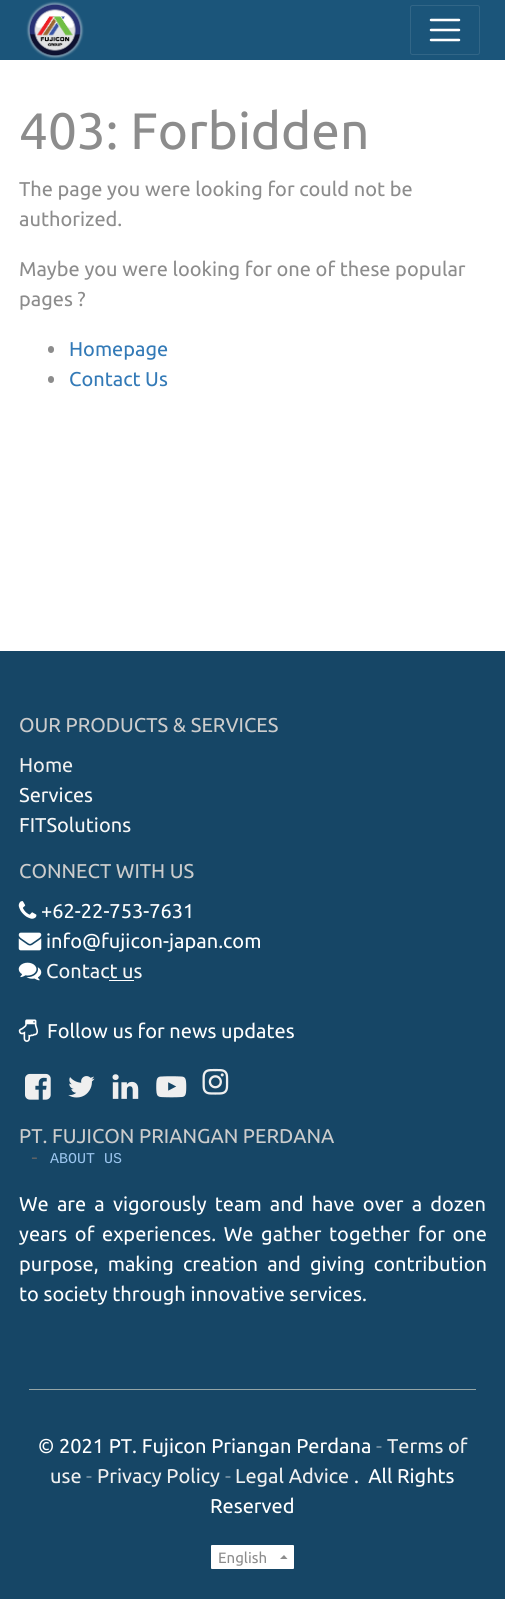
import math
import cairo



def draw_spaced(context, x, y, s, letter, word):
    context.move_to(x, y)
    for ch in s:
        context.show_text(ch)
        context.rel_move_to(letter + word * (ch == ' '), 0)


def rounded_rect(context, x, y, w, h, r):
    context.new_sub_path()
    for i, (u, v) in enumerate([(x + w - r, y + h - r), (x + r, y + h - r), (x + r, y + r), (x + w - r, y + r)]):
        context.arc(u, v, r, i * math.pi / 2, (i + 1) * math.pi / 2)
    context.close_path()


def draw_image(context, path, x, y, w, h):
    context.save()
    context.set_source_surface(cairo.ImageSurface.create_from_png(path), x, y)
    context.rectangle(x, y, w, h)
    context.fill()
    context.restore()


def draw(context):
    context.set_source_rgb(1, 1, 1)
    context.paint()
    context.set_source_rgb(27 / 255, 85 / 255, 122 / 255)
    context.rectangle(0, 0, 505, 60)
    context.fill()
    draw_image(context, "images/1.png", 26, 1, 58, 58)
    rounded_rect(context, 410.5, 5.5, 69, 49, 2)
    context.set_source_rgb(50 / 255, 102 / 255, 135 / 255)
    context.set_line_width(1)
    context.stroke()
    context.new_path()
    context.move_to(431, 20)
    context.line_to(459, 20)
    context.move_to(431, 30)
    context.line_to(459, 30)
    context.move_to(431, 40)
    context.line_to(459, 40)
    context.set_source_rgb(1, 1, 1)
    context.set_line_width(2.5)
    context.set_line_cap(cairo.LineCap.ROUND)
    context.stroke()
    context.set_source_rgb(140 / 255, 140 / 255, 140 / 255)
    rounded_rect(context, 48, 346, 6, 7, 3)
    context.fill()
    rounded_rect(context, 48, 376, 6, 7, 3)
    context.fill()
    context.set_source_rgb(22 / 255, 70 / 255, 102 / 255)
    context.rectangle(0, 651, 505, 948)
    context.fill()
    draw_image(context, "images/2.png", 18, 901, 19, 18)
    draw_image(context, "images/3.png", 18, 932, 24, 19)
    draw_image(context, "images/4.png", 18, 962, 24, 19)
    context.set_source_rgb(1, 1, 1)
    context.rectangle(109, 980, 25, 1)
    context.fill()
    draw_image(context, "images/5.png", 18, 1019, 20, 23)
    draw_image(context, "images/6.png", 25, 1073, 26, 27)
    draw_image(context, "images/7.png", 68, 1076, 27, 22)
    draw_image(context, "images/8.png", 112, 1074, 27, 25)
    draw_image(context, "images/9.png", 156, 1076, 31, 22)
    draw_image(context, "images/10.png", 202, 1068, 27, 27)
    context.set_source_rgb(149 / 255, 165 / 255, 166 / 255)
    context.rectangle(29, 1389, 447, 1)
    context.fill()
    context.set_source_rgb(1, 1, 1)
    rounded_rect(context, 211, 1545, 83, 24, 1)
    context.fill()
    context.set_source_rgb(140 / 255, 140 / 255, 140 / 255)
    context.new_path()
    context.move_to(287.5, 1559)
    context.line_to(280, 1559)
    context.line_to(284, 1555)
    context.close_path()
    context.fill()
    context.select_font_face("Ubuntu")
    context.set_font_size(51.25)
    context.move_to(19, 149)
    context.show_text("403: Forbidden")
    context.set_font_size(20)
    context.move_to(19, 196)
    context.show_text("The page you were looking for could not be")
    context.move_to(19, 226)
    context.show_text("authorized.")
    context.move_to(19, 276)
    context.show_text("Maybe you were looking for one of these popular")
    context.move_to(19, 306)
    context.show_text("pages ?")
    context.set_source_rgb(51 / 255, 122 / 255, 183 / 255)
    context.move_to(69, 356)
    context.show_text("Homepage")
    context.move_to(69, 386)
    context.show_text("Contact Us")
    context.set_source_rgb(204 / 255, 204 / 255, 204 / 255)
    context.move_to(19, 732)
    context.show_text("OUR PRODUCTS & SERVICES")
    context.set_source_rgb(239 / 255, 239 / 255, 239 / 255)
    context.move_to(19, 772)
    context.show_text("Home")
    context.set_source_rgb(247 / 255, 247 / 255, 247 / 255)
    context.move_to(19, 802)
    context.show_text("Services")
    context.move_to(19, 832)
    context.show_text("FITSolutions")
    context.set_source_rgb(204 / 255, 204 / 255, 204 / 255)
    context.move_to(19, 878)
    context.show_text("CONNECT WITH US")
    context.set_source_rgb(1, 1, 1)
    context.move_to(41, 918)
    context.show_text("+62-22-753-7631")
    context.move_to(46, 948)
    context.show_text("info@fujicon-japan.com")
    context.set_source_rgb(247 / 255, 247 / 255, 247 / 255)
    context.move_to(46, 978)
    context.show_text("Contact us")
    context.set_source_rgb(1, 1, 1)
    context.move_to(47, 1038)
    context.show_text("Follow us for news updates")
    context.set_source_rgb(204 / 255, 204 / 255, 204 / 255)
    context.move_to(19, 1143)
    context.show_text("PT. FUJICON PRIANGAN PERDANA")
    context.select_font_face("Liberation Mono")
    context.set_font_size(18)
    context.set_source_rgb(102 / 255, 102 / 255, 102 / 255)
    context.move_to(29, 1163)
    context.show_text("-")
    context.set_font_size(15)
    context.set_source_rgb(156 / 255, 198 / 255, 239 / 255)
    context.move_to(50, 1163)
    context.show_text("ABOUT US")
    context.select_font_face("Ubuntu")
    context.set_font_size(20)
    context.set_source_rgb(1, 1, 1)
    draw_spaced(context, 19, 1211, "We are a vigorously team and have over a dozen", 0, 3.5)
    draw_spaced(context, 19, 1241, "years of experiences. We gather together for one", 0, 3)
    draw_spaced(context, 19, 1271, "purpose, making creation and giving contribution", 0, 4.5)
    context.move_to(19, 1301)
    context.show_text("to society through innovative services.")
    context.move_to(38, 1453)
    context.show_text("© 2021 PT. Fujicon Priangan Perdana")
    context.set_source_rgb(115 / 255, 144 / 255, 163 / 255)
    context.move_to(376, 1453)
    context.show_text("-")
    context.set_source_rgb(239 / 255, 239 / 255, 239 / 255)
    context.move_to(387, 1453)
    context.show_text("Terms of")
    context.move_to(50, 1483)
    context.show_text("use")
    context.set_source_rgb(115 / 255, 144 / 255, 163 / 255)
    context.move_to(86, 1483)
    context.show_text("-")
    context.set_source_rgb(239 / 255, 239 / 255, 239 / 255)
    context.move_to(97, 1483)
    context.show_text("Privacy Policy")
    context.set_source_rgb(115 / 255, 144 / 255, 163 / 255)
    context.move_to(225, 1483)
    context.show_text("-")
    context.set_source_rgb(239 / 255, 239 / 255, 239 / 255)
    context.move_to(235, 1483)
    context.show_text("Legal Advice")
    context.set_source_rgb(1, 1, 1)
    context.move_to(354, 1483)
    context.show_text(".  All Rights")
    context.move_to(210, 1513)
    context.show_text("Reserved")
    context.set_font_size(15)
    context.set_source_rgb(140 / 255, 140 / 255, 140 / 255)
    context.move_to(218, 1563)
    context.show_text("English")


surface = cairo.ImageSurface(cairo.Format.RGB24, 505, 1599)
context = cairo.Context(surface)
options = cairo.FontOptions()
options.set_hint_metrics(cairo.HintMetrics.OFF)
options.set_hint_style(cairo.HintStyle.NONE)
context.set_font_options(options)
context.set_miter_limit(4)
draw(context)
surface.write_to_png("out.png")
